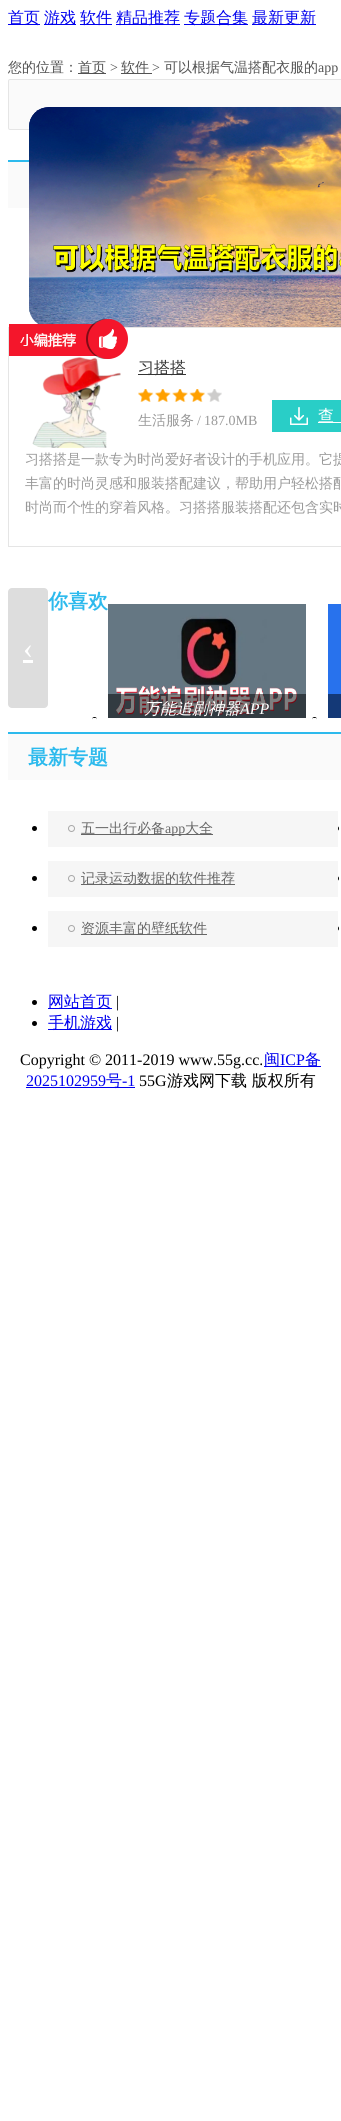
import math
import cairo



def rounded_rect(context, x, y, w, h, r):
    context.new_sub_path()
    for i, (u, v) in enumerate([(x + w - r, y + h - r), (x + r, y + h - r), (x + r, y + r), (x + w - r, y + r)]):
        context.arc(u, v, r, i * math.pi / 2, (i + 1) * math.pi / 2)
    context.close_path()


def draw_image(context, path, x, y, w, h):
    context.save()
    context.set_source_surface(cairo.ImageSurface.create_from_png(path), x, y)
    context.rectangle(x, y, w, h)
    context.fill()
    context.restore()


def draw(context):
    context.set_source_rgb(1, 1, 1)
    context.paint()
    context.set_source_rgb(0, 0, 238 / 255)
    context.rectangle(8, 24, 32, 1)
    context.fill()
    context.rectangle(44, 24, 32, 1)
    context.fill()
    context.rectangle(80, 24, 32, 1)
    context.fill()
    context.rectangle(116, 24, 64, 1)
    context.fill()
    context.rectangle(184, 24, 64, 1)
    context.fill()
    context.rectangle(252, 24, 64, 1)
    context.fill()
    context.set_source_rgb(82 / 255, 82 / 255, 82 / 255)
    context.rectangle(78, 73, 28, 1)
    context.fill()
    context.rectangle(121, 73, 31, 1)
    context.fill()
    context.set_source_rgb(250 / 255, 250 / 255, 250 / 255)
    rounded_rect(context, 8.5, 79.5, 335, 50, 1.5)
    context.fill_preserve()
    context.set_source_rgb(229 / 255, 229 / 255, 229 / 255)
    context.set_line_width(1)
    context.stroke()
    draw_image(context, "images/1.png", 29, 107, 20, 205)
    draw_image(context, "images/2.png", 29, 107, 312, 220)
    context.rectangle(8.5, 327.5, 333, 219)
    context.stroke()
    draw_image(context, "images/4.png", 32, 356, 89, 92)
    draw_image(context, "images/3.png", 9, 319, 119, 40)
    context.set_source_rgb(51 / 255, 51 / 255, 51 / 255)
    context.rectangle(138, 374, 48, 1)
    context.fill()
    draw_image(context, "images/5.png", 138, 389, 84, 13)
    context.set_source_rgb(41 / 255, 206 / 255, 199 / 255)
    context.rectangle(272, 400, 69, 32)
    context.fill()
    draw_image(context, "images/6.png", 290, 407, 18, 18)
    context.set_source_rgb(1, 1, 1)
    context.rectangle(318, 422, 23, 1)
    context.fill()
    context.set_source_rgb(250 / 255, 250 / 255, 250 / 255)
    context.rectangle(8, 162, 21, 46)
    context.fill()
    context.set_source_rgb(45 / 255, 186 / 255, 237 / 255)
    context.rectangle(8, 160, 21, 2)
    context.fill()
    context.set_source_rgb(221 / 255, 221 / 255, 221 / 255)
    rounded_rect(context, 8, 588, 40, 120, 4)
    context.fill()
    context.set_source_rgb(1, 1, 1)
    context.rectangle(23, 660, 10, 3)
    context.fill()
    draw_image(context, "images/7.png", 108, 604, 198, 114)
    context.set_source_rgba(0, 0, 0, 0.5)
    context.rectangle(108, 694, 198, 24)
    context.fill()
    context.set_source_rgb(0, 0, 0)
    context.new_path()
    context.move_to(94.5, 717)
    context.curve_to(96, 717, 97, 718, 97, 719.5)
    context.line_to(97, 718)
    context.line_to(92, 718)
    context.line_to(92, 719.5)
    context.curve_to(92, 718, 93, 717, 94.5, 717)
    context.close_path()
    context.fill()
    context.new_path()
    context.move_to(314.5, 717)
    context.curve_to(316, 717, 317, 718, 317, 719.5)
    context.line_to(317, 718)
    context.line_to(312, 718)
    context.line_to(312, 719.5)
    context.curve_to(312, 718, 313, 717, 314.5, 717)
    context.close_path()
    context.fill()
    context.set_source_rgb(40 / 255, 114 / 255, 237 / 255)
    context.rectangle(328, 604, 13, 90)
    context.fill()
    context.set_source_rgb(20 / 255, 57 / 255, 119 / 255)
    context.rectangle(328, 694, 13, 24)
    context.fill()
    context.set_source_rgb(250 / 255, 250 / 255, 250 / 255)
    context.rectangle(8, 734, 333, 46)
    context.fill()
    context.set_source_rgb(45 / 255, 186 / 255, 237 / 255)
    context.rectangle(8, 732, 333, 2)
    context.fill()
    context.set_source_rgb(0, 0, 0)
    context.arc(34.5, 828.5, 2.5, 0, 2 * math.pi)
    context.fill()
    context.arc(336.5, 828.5, 2.5, 0, 2 * math.pi)
    context.fill()
    context.set_source_rgb(246 / 255, 246 / 255, 246 / 255)
    context.rectangle(48, 811, 290, 36)
    context.fill()
    draw_image(context, "images/8.png", 68, 825, 7, 7)
    context.set_source_rgb(102 / 255, 102 / 255, 102 / 255)
    context.rectangle(81, 834, 132, 1)
    context.fill()
    context.set_source_rgb(0, 0, 0)
    context.arc(34.5, 878.5, 2.5, 0, 2 * math.pi)
    context.fill()
    context.arc(336.5, 878.5, 2.5, 0, 2 * math.pi)
    context.fill()
    context.set_source_rgb(246 / 255, 246 / 255, 246 / 255)
    context.rectangle(48, 861, 290, 36)
    context.fill()
    draw_image(context, "images/8.png", 68, 875, 7, 7)
    context.set_source_rgb(102 / 255, 102 / 255, 102 / 255)
    context.rectangle(81, 884, 154, 1)
    context.fill()
    context.set_source_rgb(0, 0, 0)
    context.arc(34.5, 928.5, 2.5, 0, 2 * math.pi)
    context.fill()
    context.arc(336.5, 928.5, 2.5, 0, 2 * math.pi)
    context.fill()
    context.set_source_rgb(246 / 255, 246 / 255, 246 / 255)
    context.rectangle(48, 911, 290, 36)
    context.fill()
    draw_image(context, "images/8.png", 68, 925, 7, 7)
    context.set_source_rgb(102 / 255, 102 / 255, 102 / 255)
    context.rectangle(81, 934, 126, 1)
    context.fill()
    context.set_source_rgb(0, 0, 0)
    context.arc(34.5, 1002.5, 2.5, 0, 2 * math.pi)
    context.fill()
    context.set_source_rgb(0, 0, 238 / 255)
    context.rectangle(48, 1008, 64, 1)
    context.fill()
    context.set_source_rgb(0, 0, 0)
    context.arc(34.5, 1023.5, 2.5, 0, 2 * math.pi)
    context.fill()
    context.set_source_rgb(0, 0, 238 / 255)
    context.rectangle(48, 1029, 64, 1)
    context.fill()
    context.rectangle(264, 1066, 57, 1)
    context.fill()
    context.rectangle(26, 1087, 109, 1)
    context.fill()
    context.select_font_face("WenQuanYi Zen Hei Medium")
    context.set_font_size(16)
    context.move_to(8, 23)
    context.show_text("首页")
    context.move_to(44, 23)
    context.show_text("游戏")
    context.move_to(80, 23)
    context.show_text("软件")
    context.move_to(116, 23)
    context.show_text("精品推荐")
    context.move_to(184, 23)
    context.show_text("专题合集")
    context.move_to(252, 23)
    context.show_text("最新更新")
    context.set_font_size(14)
    context.set_source_rgb(82 / 255, 82 / 255, 82 / 255)
    context.move_to(8, 72)
    context.show_text("您的位置：")
    context.move_to(78, 72)
    context.show_text("首页")
    context.select_font_face("Liberation Serif")
    context.move_to(110, 72)
    context.show_text(">")
    context.select_font_face("WenQuanYi Zen Hei Medium")
    context.move_to(121, 72)
    context.show_text("软件")
    context.select_font_face("Liberation Serif")
    context.move_to(152, 72)
    context.show_text(">")
    context.select_font_face("WenQuanYi Zen Hei Medium")
    context.move_to(164, 72)
    context.show_text("可以根据气温搭配衣服的")
    context.select_font_face("Liberation Serif")
    context.move_to(318, 72)
    context.show_text("app")
    context.select_font_face("WenQuanYi Zen Hei Medium")
    context.set_font_size(16)
    context.set_source_rgb(51 / 255, 51 / 255, 51 / 255)
    context.move_to(138, 373)
    context.show_text("习搭搭")
    context.set_font_size(14)
    context.set_source_rgb(153 / 255, 153 / 255, 153 / 255)
    context.move_to(138, 425)
    context.show_text("生活服务")
    context.select_font_face("Liberation Serif")
    context.move_to(197, 425)
    context.show_text("/")
    context.move_to(204, 425)
    context.show_text("187.0MB")
    context.select_font_face("WenQuanYi Zen Hei Medium")
    context.set_font_size(16)
    context.set_source_rgb(1, 1, 1)
    context.move_to(318, 421)
    context.show_text("查")
    context.set_font_size(14)
    context.set_source_rgb(153 / 255, 153 / 255, 153 / 255)
    context.move_to(25, 464)
    context.show_text("习搭搭是一款专为时尚爱好者设计的手机应用。它提")
    context.move_to(25, 488)
    context.show_text("丰富的时尚灵感和服装搭配建议，帮助用户轻松搭配")
    context.move_to(25, 512)
    context.show_text("时尚而个性的穿着风格。习搭搭服装搭配还包含实时")
    context.select_font_face("WenQuanYi Zen Hei", cairo.FontSlant.NORMAL, cairo.FontWeight.BOLD)
    context.set_font_size(20)
    context.set_source_rgb(45 / 255, 186 / 255, 237 / 255)
    context.move_to(48, 608)
    context.show_text("你喜欢")
    context.select_font_face("Liberation Serif")
    context.set_font_size(30)
    context.set_source_rgb(1, 1, 1)
    context.move_to(23, 658)
    context.show_text("‹")
    context.select_font_face("WenQuanYi Zen Hei Medium", cairo.FontSlant.ITALIC)
    context.set_font_size(16)
    context.move_to(144, 714)
    context.show_text("万能追剧神器")
    context.select_font_face("Liberation Serif", cairo.FontSlant.ITALIC)
    context.move_to(240, 714)
    context.show_text("APP")
    context.select_font_face("WenQuanYi Zen Hei", cairo.FontSlant.NORMAL, cairo.FontWeight.BOLD)
    context.set_font_size(20)
    context.set_source_rgb(45 / 255, 186 / 255, 237 / 255)
    context.move_to(28, 764)
    context.show_text("最新专题")
    context.select_font_face("WenQuanYi Zen Hei Medium")
    context.set_font_size(14)
    context.set_source_rgb(102 / 255, 102 / 255, 102 / 255)
    context.move_to(81, 833)
    context.show_text("五一出行必备")
    context.select_font_face("Liberation Serif")
    context.move_to(165, 833)
    context.show_text("app")
    context.select_font_face("WenQuanYi Zen Hei Medium")
    context.move_to(185, 833)
    context.show_text("大全")
    context.move_to(81, 883)
    context.show_text("记录运动数据的软件推荐")
    context.move_to(81, 933)
    context.show_text("资源丰富的壁纸软件")
    context.set_font_size(16)
    context.set_source_rgb(0, 0, 238 / 255)
    context.move_to(48, 1007)
    context.show_text("网站首页")
    context.select_font_face("Liberation Serif")
    context.set_source_rgb(0, 0, 0)
    context.move_to(116, 1007)
    context.show_text("|")
    context.select_font_face("WenQuanYi Zen Hei Medium")
    context.set_source_rgb(0, 0, 238 / 255)
    context.move_to(48, 1028)
    context.show_text("手机游戏")
    context.select_font_face("Liberation Serif")
    context.set_source_rgb(0, 0, 0)
    context.move_to(116, 1028)
    context.show_text("|")
    context.move_to(20, 1065)
    context.show_text("Copyright © 2011-2019 www.55g.cc.")
    context.select_font_face("WenQuanYi Zen Hei Medium")
    context.set_source_rgb(0, 0, 238 / 255)
    context.move_to(264, 1065)
    context.show_text("闽")
    context.select_font_face("Liberation Serif")
    context.move_to(280, 1065)
    context.show_text("ICP")
    context.select_font_face("WenQuanYi Zen Hei Medium")
    context.move_to(305, 1065)
    context.show_text("备")
    context.select_font_face("Liberation Serif")
    context.move_to(26, 1086)
    context.show_text("2025102959")
    context.select_font_face("WenQuanYi Zen Hei Medium")
    context.move_to(106, 1086)
    context.show_text("号")
    context.select_font_face("Liberation Serif")
    context.move_to(122, 1086)
    context.show_text("-1")
    context.set_source_rgb(0, 0, 0)
    context.move_to(139, 1086)
    context.show_text("55G")
    context.select_font_face("WenQuanYi Zen Hei Medium")
    context.move_to(167, 1086)
    context.show_text("游戏网下载 版权所有")


surface = cairo.ImageSurface(cairo.Format.RGB24, 341, 2121)
context = cairo.Context(surface)
options = cairo.FontOptions()
options.set_hint_metrics(cairo.HintMetrics.OFF)
options.set_hint_style(cairo.HintStyle.NONE)
context.set_font_options(options)
context.set_miter_limit(4)
draw(context)
surface.write_to_png("out.png")
